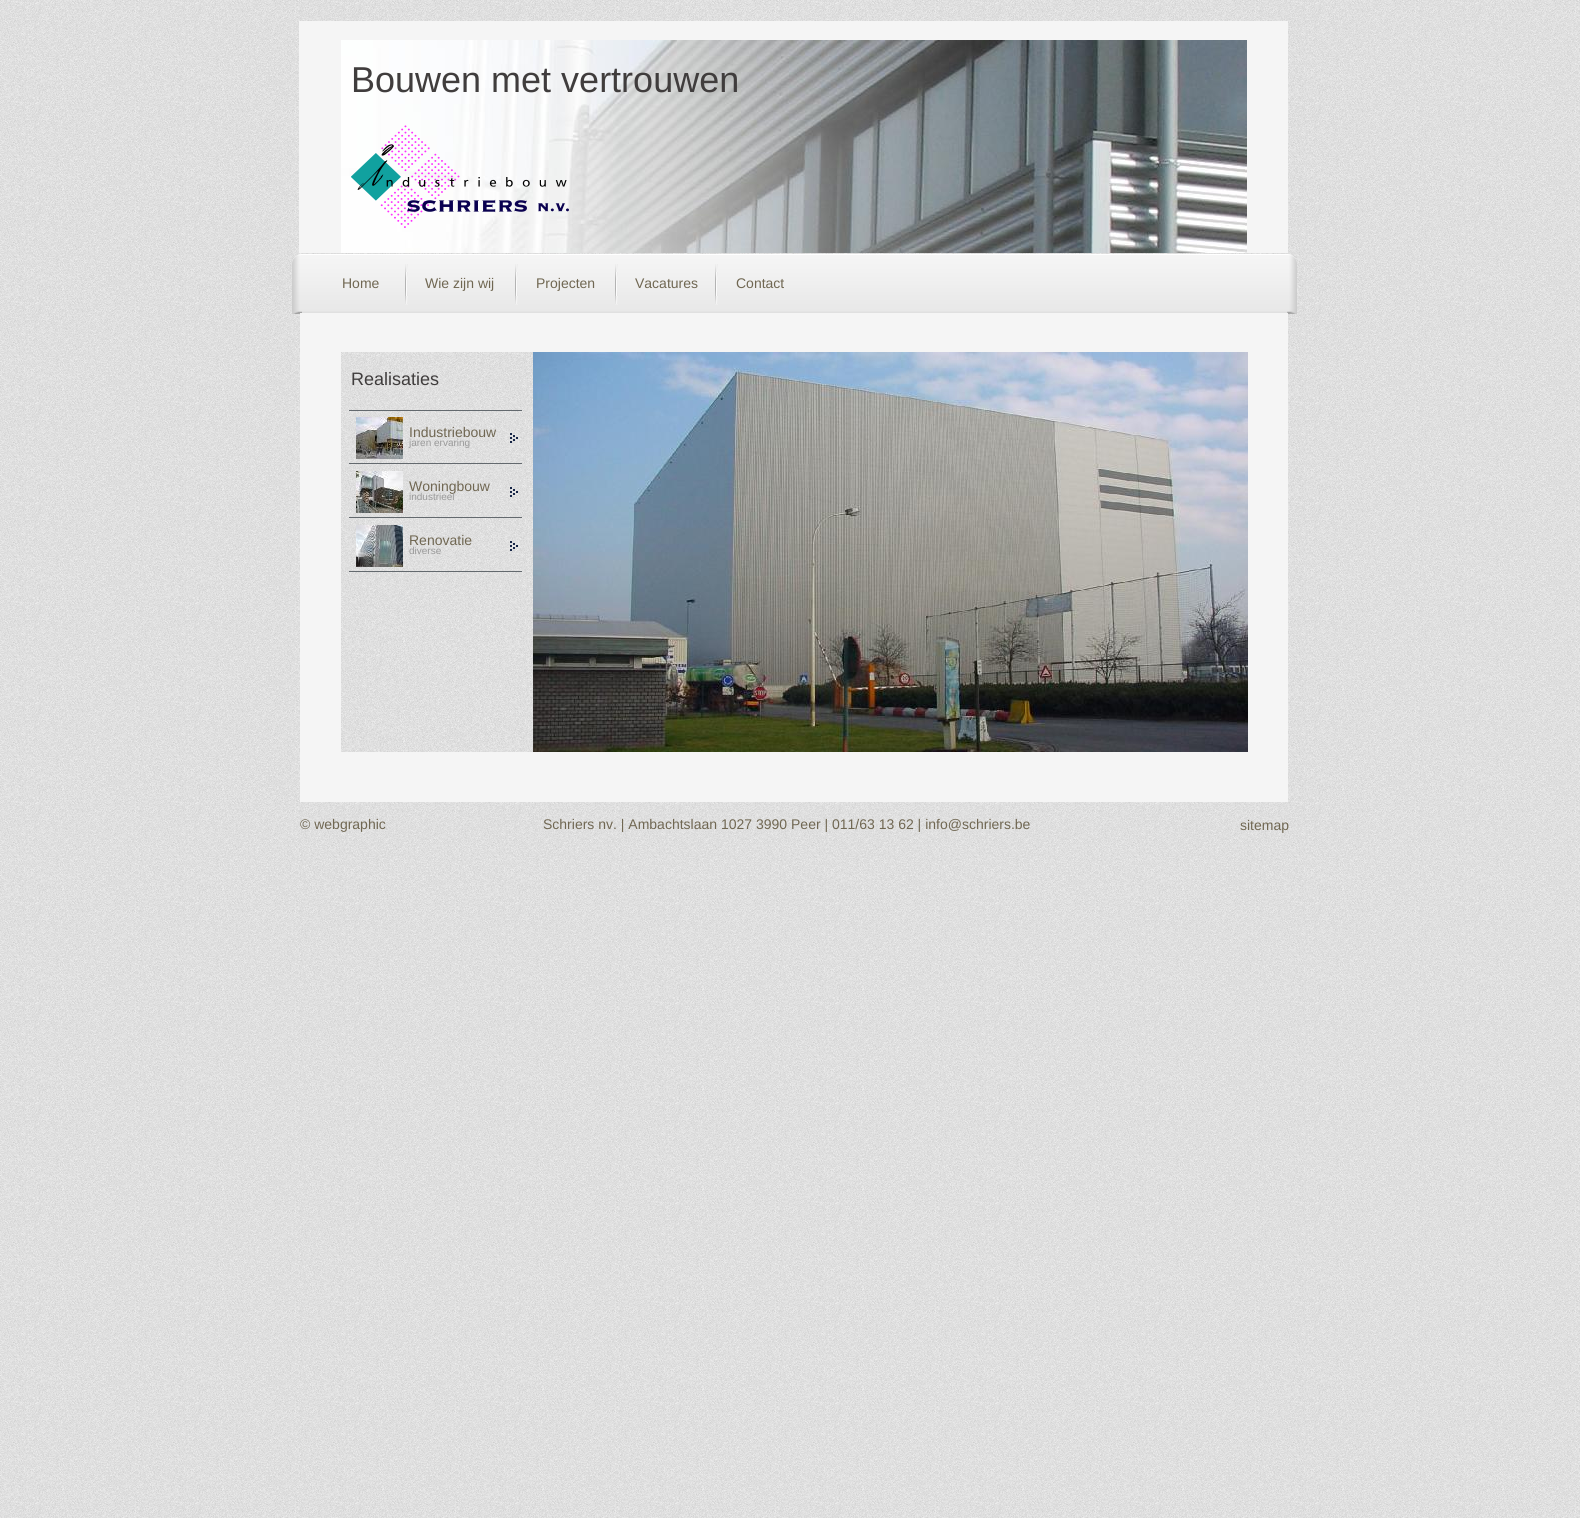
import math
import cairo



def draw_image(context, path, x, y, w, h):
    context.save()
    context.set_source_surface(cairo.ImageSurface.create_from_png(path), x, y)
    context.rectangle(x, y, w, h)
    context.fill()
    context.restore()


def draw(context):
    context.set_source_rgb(1, 1, 1)
    context.paint()
    draw_image(context, "images/1.png", 0, 0, 1580, 1518)
    context.set_source_rgb(245 / 255, 245 / 255, 245 / 255)
    context.rectangle(299, 21, 989, 232)
    context.fill()
    draw_image(context, "images/2.png", 341, 40, 906, 213)
    draw_image(context, "images/3.png", 351, 125, 218, 103)
    draw_image(context, "images/4.png", 292, 254, 1005, 60)
    draw_image(context, "images/5.png", 405, 264, 3, 41)
    draw_image(context, "images/5.png", 515, 264, 3, 41)
    draw_image(context, "images/5.png", 615, 264, 3, 41)
    draw_image(context, "images/5.png", 715, 264, 3, 41)
    context.rectangle(300, 313, 988, 489)
    context.fill()
    draw_image(context, "images/6.png", 341, 352, 192, 400)
    draw_image(context, "images/7.png", 533, 352, 715, 400)
    context.set_source_rgb(99 / 255, 105 / 255, 110 / 255)
    context.rectangle(349, 410, 173, 1)
    context.fill()
    draw_image(context, "images/8.png", 356, 417, 47, 42)
    draw_image(context, "images/9.png", 510, 433, 8, 10)
    context.rectangle(349, 463, 173, 1)
    context.fill()
    draw_image(context, "images/10.png", 356, 471, 47, 42)
    draw_image(context, "images/11.png", 510, 487, 8, 10)
    context.rectangle(349, 517, 173, 1)
    context.fill()
    draw_image(context, "images/12.png", 356, 525, 47, 42)
    draw_image(context, "images/13.png", 510, 541, 8, 10)
    context.rectangle(349, 571, 173, 1)
    context.fill()
    context.select_font_face("Liberation Sans")
    context.set_font_size(36)
    context.set_source_rgb(64 / 255, 61 / 255, 61 / 255)
    context.move_to(351, 92)
    context.show_text("Bouwen met vertrouwen")
    context.set_font_size(14)
    context.set_source_rgb(112 / 255, 103 / 255, 82 / 255)
    context.move_to(342, 288)
    context.show_text("Home")
    context.move_to(425, 288)
    context.show_text("Wie zijn wij")
    context.move_to(536, 288)
    context.show_text("Projecten")
    context.move_to(635, 288)
    context.show_text("Vacatures")
    context.move_to(736, 288)
    context.show_text("Contact")
    context.set_font_size(18)
    context.set_source_rgb(64 / 255, 61 / 255, 61 / 255)
    context.move_to(351, 385)
    context.show_text("Realisaties")
    context.set_font_size(14)
    context.set_source_rgb(112 / 255, 103 / 255, 82 / 255)
    context.move_to(409, 437)
    context.show_text("Industriebouw")
    context.set_font_size(10)
    context.set_source_rgb(153 / 255, 153 / 255, 153 / 255)
    context.move_to(409, 446)
    context.show_text("jaren ervaring")
    context.set_font_size(14)
    context.set_source_rgb(112 / 255, 103 / 255, 82 / 255)
    context.move_to(409, 491)
    context.show_text("Woningbouw")
    context.set_font_size(10)
    context.set_source_rgb(153 / 255, 153 / 255, 153 / 255)
    context.move_to(409, 500)
    context.show_text("industrieel")
    context.set_font_size(14)
    context.set_source_rgb(112 / 255, 103 / 255, 82 / 255)
    context.move_to(409, 545)
    context.show_text("Renovatie")
    context.set_font_size(10)
    context.set_source_rgb(153 / 255, 153 / 255, 153 / 255)
    context.move_to(409, 554)
    context.show_text("diverse")
    context.set_font_size(14)
    context.set_source_rgb(112 / 255, 103 / 255, 82 / 255)
    context.move_to(300, 829)
    context.show_text("© webgraphic")
    context.move_to(543, 829)
    context.show_text("Schriers nv. | Ambachtslaan 1027 3990 Peer | 011/63 13 62 | info@schriers.be")
    context.move_to(1240, 830)
    context.show_text("sitemap")


surface = cairo.ImageSurface(cairo.Format.RGB24, 1580, 1518)
context = cairo.Context(surface)
options = cairo.FontOptions()
options.set_hint_metrics(cairo.HintMetrics.OFF)
options.set_hint_style(cairo.HintStyle.NONE)
context.set_font_options(options)
context.set_miter_limit(4)
draw(context)
surface.write_to_png("out.png")
